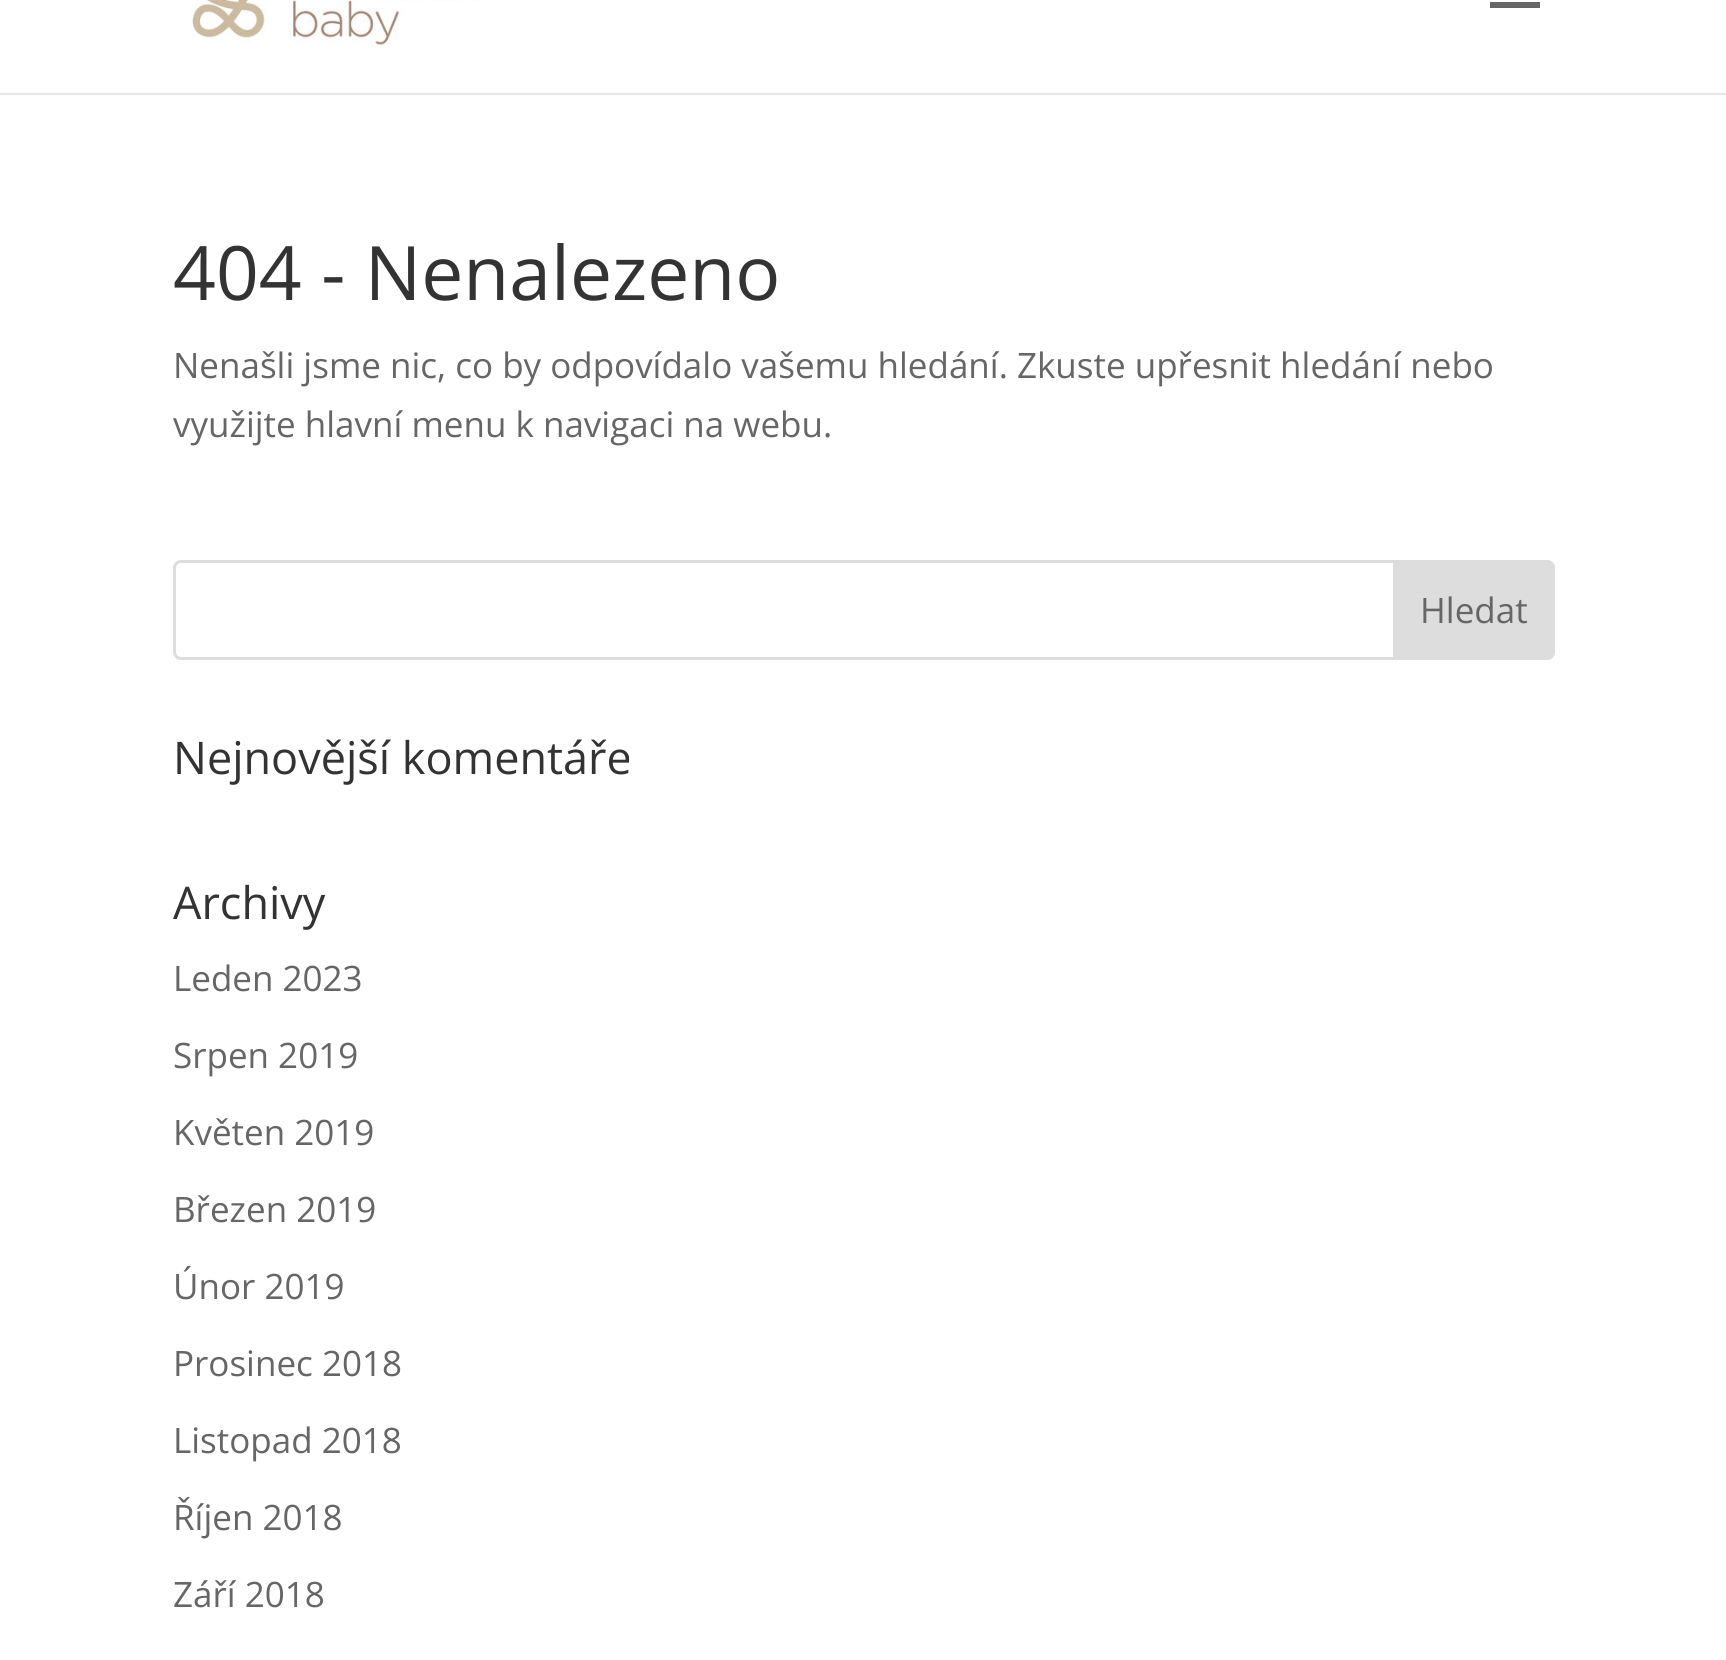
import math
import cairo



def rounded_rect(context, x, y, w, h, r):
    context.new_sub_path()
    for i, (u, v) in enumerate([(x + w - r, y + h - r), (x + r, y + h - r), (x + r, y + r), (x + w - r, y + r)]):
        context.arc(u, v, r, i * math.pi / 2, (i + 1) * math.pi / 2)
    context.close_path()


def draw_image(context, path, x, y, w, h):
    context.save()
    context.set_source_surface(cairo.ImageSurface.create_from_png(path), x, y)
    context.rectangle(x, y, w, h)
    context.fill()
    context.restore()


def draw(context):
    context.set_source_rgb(1, 1, 1)
    context.paint()
    context.set_source_rgb(230 / 255, 230 / 255, 230 / 255)
    context.new_path()
    context.move_to(0, 92)
    context.line_to(0, 95)
    context.line_to(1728, 95)
    context.line_to(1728, -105)
    context.line_to(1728, 92)
    context.close_path()
    context.fill()
    context.set_source_rgb(1, 1, 1)
    context.rectangle(0, 92, 1726, 1)
    context.fill()
    draw_image(context, "images/1.png", 190, 0, 288, 47)
    context.set_source_rgb(102 / 255, 102 / 255, 102 / 255)
    context.rectangle(1490, 2, 50, 6)
    context.fill()
    rounded_rect(context, 174.5, 561.5, 1379, 97, 6.5)
    context.set_source_rgb(221 / 255, 221 / 255, 221 / 255)
    context.set_line_width(3)
    context.stroke()
    context.new_path()
    context.move_to(1394.5, 561.5)
    context.line_to(1547, 561.5)
    context.curve_to(1550.5, 561.5, 1553.5, 564.5, 1553.5, 568)
    context.line_to(1553.5, 652)
    context.curve_to(1553.5, 655.5, 1550.5, 658.5, 1547, 658.5)
    context.line_to(1394.5, 658.5)
    context.close_path()
    context.fill_preserve()
    context.stroke()
    context.select_font_face("Open Sans")
    context.set_font_size(75)
    context.set_source_rgb(51 / 255, 51 / 255, 51 / 255)
    context.move_to(173, 300)
    context.show_text("404 - Nenalezeno")
    context.set_font_size(35)
    context.set_source_rgb(102 / 255, 102 / 255, 102 / 255)
    context.move_to(173, 378)
    context.show_text("Nenašli jsme nic, co by odpovídalo vašemu hledání. Zkuste upřesnit hledání nebo")
    context.move_to(173, 437)
    context.show_text("využijte hlavní menu k navigaci na webu.")
    context.move_to(1420, 623)
    context.show_text("Hledat")
    context.set_font_size(45)
    context.set_source_rgb(51 / 255, 51 / 255, 51 / 255)
    context.move_to(173, 774)
    context.show_text("Nejnovější komentáře")
    context.move_to(173, 919)
    context.show_text("Archivy")
    context.set_font_size(35)
    context.set_source_rgb(102 / 255, 102 / 255, 102 / 255)
    context.move_to(173, 991)
    context.show_text("Leden 2023")
    context.move_to(173, 1068)
    context.show_text("Srpen 2019")
    context.move_to(173, 1145)
    context.show_text("Květen 2019")
    context.move_to(173, 1222)
    context.show_text("Březen 2019")
    context.move_to(173, 1299)
    context.show_text("Únor 2019")
    context.move_to(173, 1376)
    context.show_text("Prosinec 2018")
    context.move_to(173, 1453)
    context.show_text("Listopad 2018")
    context.move_to(173, 1530)
    context.show_text("Říjen 2018")
    context.move_to(173, 1607)
    context.show_text("Září 2018")


surface = cairo.ImageSurface(cairo.Format.RGB24, 1726, 1660)
context = cairo.Context(surface)
options = cairo.FontOptions()
options.set_hint_metrics(cairo.HintMetrics.OFF)
options.set_hint_style(cairo.HintStyle.NONE)
context.set_font_options(options)
context.set_miter_limit(4)
draw(context)
surface.write_to_png("out.png")
